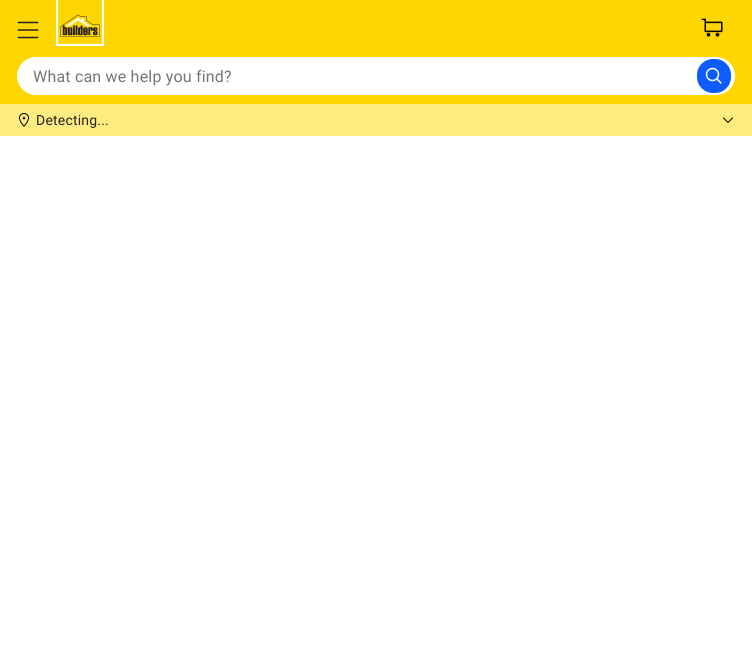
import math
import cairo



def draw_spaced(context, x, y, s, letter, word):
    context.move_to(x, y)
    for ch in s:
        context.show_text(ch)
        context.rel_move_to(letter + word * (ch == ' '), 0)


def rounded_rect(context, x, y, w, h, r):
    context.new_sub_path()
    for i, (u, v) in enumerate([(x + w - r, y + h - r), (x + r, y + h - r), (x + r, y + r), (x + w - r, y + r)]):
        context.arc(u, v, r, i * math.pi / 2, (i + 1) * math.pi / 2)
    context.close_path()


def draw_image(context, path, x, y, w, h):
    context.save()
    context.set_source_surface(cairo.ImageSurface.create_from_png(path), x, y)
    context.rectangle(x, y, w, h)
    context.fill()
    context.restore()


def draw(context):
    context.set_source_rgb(1, 1, 1)
    context.paint()
    context.set_source_rgb(1, 214 / 255, 0)
    context.rectangle(0, 0, 752, 104)
    context.fill()
    draw_image(context, "images/1.png", 17, 21, 22, 18)
    draw_image(context, "images/2.png", 56, 0, 48, 46)
    draw_image(context, "images/3.png", 701, 18, 22, 19)
    context.set_source_rgb(1, 1, 1)
    context.new_path()
    context.move_to(36, 57)
    context.line_to(692, 57)
    context.line_to(692, 95)
    context.line_to(36, 95)
    context.curve_to(25.5, 95, 17, 86.5, 17, 76)
    context.curve_to(17, 65.5, 25.5, 57, 36, 57)
    context.close_path()
    context.fill()
    context.new_path()
    context.move_to(692, 57)
    context.line_to(716, 57)
    context.curve_to(726.5, 57, 735, 65.5, 735, 76)
    context.curve_to(735, 86.5, 726.5, 95, 716, 95)
    context.line_to(692, 95)
    context.close_path()
    context.fill()
    context.set_source_rgb(13 / 255, 93 / 255, 254 / 255)
    rounded_rect(context, 697, 59, 34, 34, 16)
    context.fill()
    draw_image(context, "images/4.png", 705, 67, 17, 17)
    context.set_source_rgb(1, 235 / 255, 128 / 255)
    context.rectangle(0, 104, 752, 32)
    context.fill()
    draw_image(context, "images/5.png", 19, 113, 10, 14)
    draw_image(context, "images/6.png", 723, 117, 10, 6)
    context.select_font_face("Roboto")
    context.set_font_size(16)
    context.set_source_rgb(117 / 255, 117 / 255, 117 / 255)
    draw_spaced(context, 33, 82, "What can we help you find?", 0.2, 0)
    context.set_font_size(14)
    context.set_source_rgb(34 / 255, 34 / 255, 35 / 255)
    draw_spaced(context, 36, 125, "Detecting...", 0.2, 0)


surface = cairo.ImageSurface(cairo.Format.RGB24, 752, 667)
context = cairo.Context(surface)
options = cairo.FontOptions()
options.set_hint_metrics(cairo.HintMetrics.OFF)
options.set_hint_style(cairo.HintStyle.NONE)
context.set_font_options(options)
context.set_miter_limit(4)
draw(context)
surface.write_to_png("out.png")
